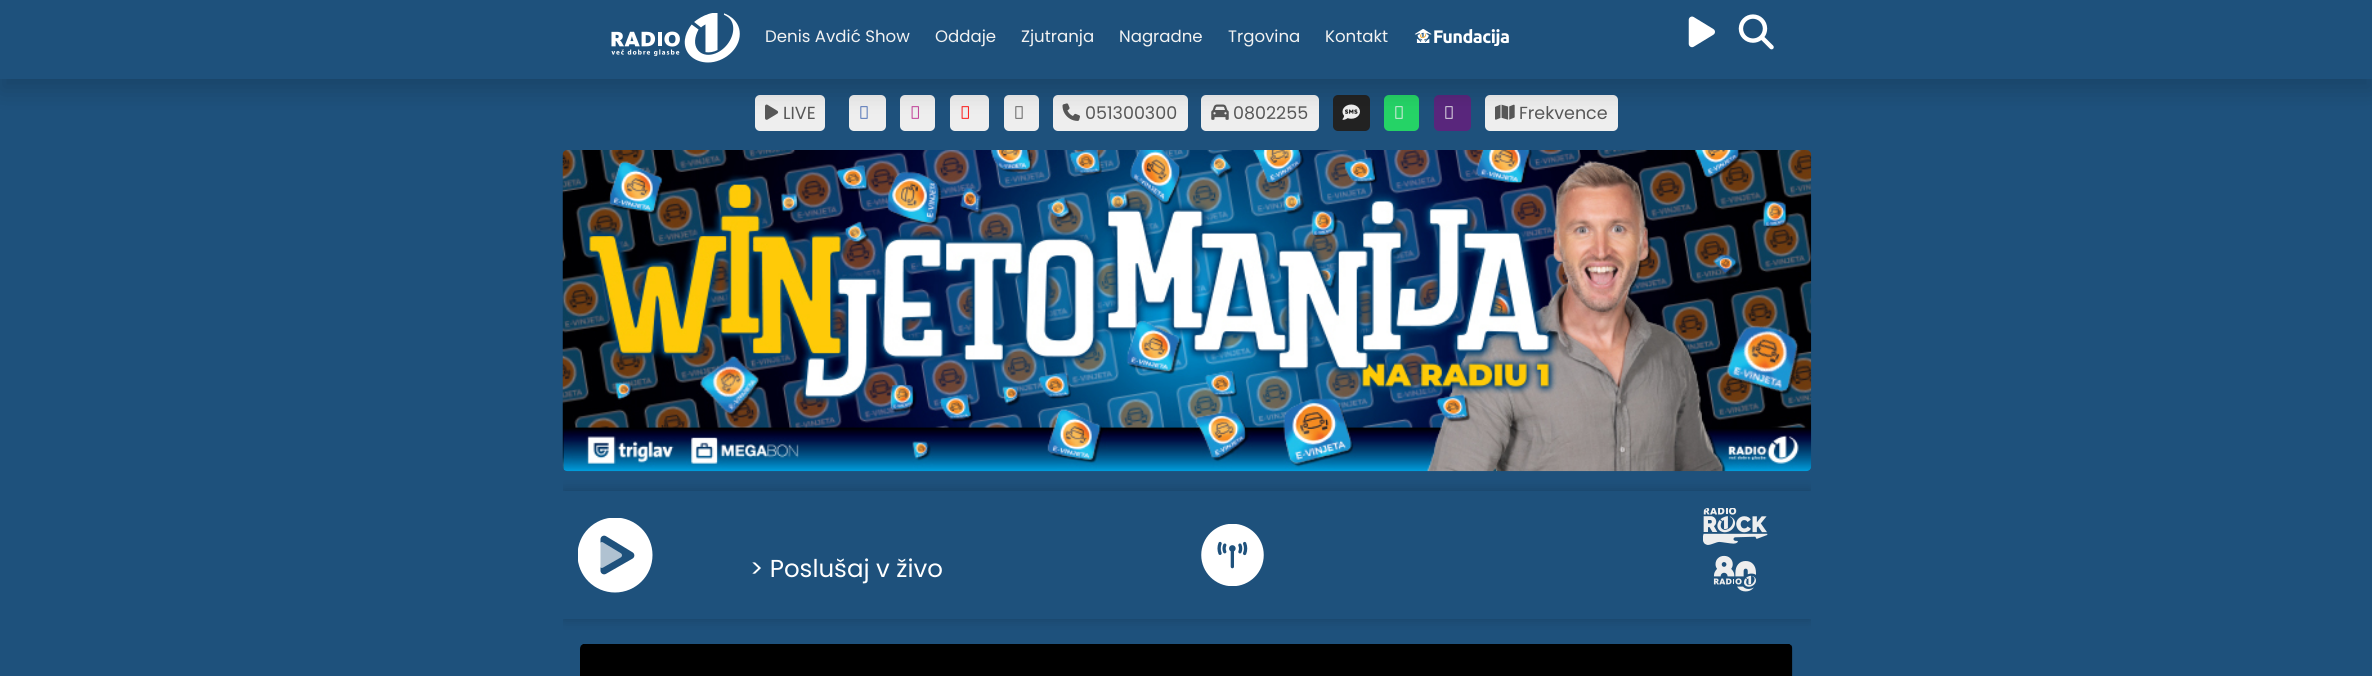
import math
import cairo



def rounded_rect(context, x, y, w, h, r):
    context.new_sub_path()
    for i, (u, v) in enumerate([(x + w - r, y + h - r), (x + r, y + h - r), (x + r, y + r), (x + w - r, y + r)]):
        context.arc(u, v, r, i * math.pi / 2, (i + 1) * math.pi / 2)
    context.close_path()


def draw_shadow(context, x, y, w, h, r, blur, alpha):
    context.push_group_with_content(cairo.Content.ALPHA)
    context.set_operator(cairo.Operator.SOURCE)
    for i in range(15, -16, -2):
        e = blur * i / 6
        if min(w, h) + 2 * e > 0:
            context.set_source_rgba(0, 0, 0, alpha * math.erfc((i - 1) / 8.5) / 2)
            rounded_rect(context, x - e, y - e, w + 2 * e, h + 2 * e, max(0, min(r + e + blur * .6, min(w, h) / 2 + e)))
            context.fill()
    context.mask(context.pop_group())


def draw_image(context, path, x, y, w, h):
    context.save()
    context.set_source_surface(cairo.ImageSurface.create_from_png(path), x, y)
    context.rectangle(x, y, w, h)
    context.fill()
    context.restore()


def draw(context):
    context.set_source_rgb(30 / 255, 81 / 255, 124 / 255)
    context.paint()
    context.set_source_rgb(238 / 255, 238 / 255, 238 / 255)
    rounded_rect(context, 755, 95, 70, 36, 5)
    context.fill()
    draw_image(context, "images/5.png", 765, 104, 14, 16)
    rounded_rect(context, 849, 95, 37, 36, 5)
    context.fill()
    draw_image(context, "images/6.png", 860, 106, 8, 13)
    rounded_rect(context, 900, 95, 35, 36, 5)
    context.fill()
    draw_image(context, "images/7.png", 911, 106, 8, 13)
    rounded_rect(context, 950, 95, 39, 36, 5)
    context.fill()
    draw_image(context, "images/8.png", 961, 106, 8, 13)
    rounded_rect(context, 1004, 95, 35, 36, 5)
    context.fill()
    draw_image(context, "images/9.png", 1015, 106, 8, 13)
    rounded_rect(context, 1053, 95, 135, 36, 5)
    context.fill()
    draw_image(context, "images/10.png", 1062, 103, 18, 18)
    rounded_rect(context, 1201, 95, 118, 36, 5)
    context.fill()
    draw_image(context, "images/11.png", 1211, 104, 18, 16)
    context.set_source_rgb(34 / 255, 34 / 255, 34 / 255)
    rounded_rect(context, 1333, 95, 37, 36, 5)
    context.fill()
    draw_image(context, "images/12.png", 1342, 104, 18, 16)
    context.set_source_rgb(37 / 255, 211 / 255, 102 / 255)
    rounded_rect(context, 1384, 95, 35, 36, 5)
    context.fill()
    draw_image(context, "images/13.png", 1395, 106, 8, 13)
    context.set_source_rgb(89 / 255, 38 / 255, 124 / 255)
    rounded_rect(context, 1434, 95, 37, 36, 5)
    context.fill()
    draw_image(context, "images/14.png", 1445, 106, 8, 13)
    context.set_source_rgb(238 / 255, 238 / 255, 238 / 255)
    rounded_rect(context, 1485, 95, 133, 36, 5)
    context.fill()
    draw_image(context, "images/15.png", 1495, 104, 20, 16)
    context.save()
    context.set_fill_rule(cairo.FillRule.EVEN_ODD)
    context.new_path()
    context.move_to(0, 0)
    context.line_to(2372, 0)
    context.line_to(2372, 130)
    context.line_to(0, 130)
    context.close_path()
    context.move_to(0, 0)
    context.line_to(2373, 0)
    context.line_to(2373, 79)
    context.line_to(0, 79)
    context.close_path()
    context.clip()
    context.set_source_rgb(0, 0, 0)
    draw_shadow(context, 0, 13, 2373, 78, 0, 12.5, 0.16)
    context.restore()
    context.set_source_rgb(30 / 255, 81 / 255, 124 / 255)
    context.rectangle(563, 78, 1248, 1)
    context.fill()
    draw_image(context, "images/1.png", 611, 13, 129, 50)
    draw_image(context, "images/2.png", 1414, 29, 95, 17)
    draw_image(context, "images/3.png", 1688, 16, 27, 32)
    draw_image(context, "images/4.png", 1738, 14, 36, 36)
    draw_image(context, "images/16.png", 562, 150, 1250, 322)
    context.save()
    context.rectangle(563, 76, 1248, 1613)
    context.clip()
    context.set_fill_rule(cairo.FillRule.EVEN_ODD)
    context.new_path()
    context.move_to(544, 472)
    context.line_to(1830, 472)
    context.line_to(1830, 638)
    context.line_to(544, 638)
    context.close_path()
    context.move_to(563, 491)
    context.line_to(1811, 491)
    context.line_to(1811, 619)
    context.line_to(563, 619)
    context.close_path()
    context.clip()
    context.set_source_rgb(0, 0, 0)
    draw_shadow(context, 563, 491, 1248, 128, 0, 6, 0.2)
    context.restore()
    draw_image(context, "images/17.png", 578, 518, 75, 75)
    draw_image(context, "images/18.png", 1201, 524, 63, 62)
    draw_image(context, "images/19.png", 1703, 508, 65, 37)
    draw_image(context, "images/20.png", 1713, 555, 43, 37)
    draw_image(context, "images/21.png", 580, 644, 1213, 32)
    context.select_font_face("Poppins")
    context.set_font_size(16.6)
    context.set_source_rgb(242 / 255, 242 / 255, 242 / 255)
    context.move_to(765, 42)
    context.show_text("Denis Avdić Show")
    context.move_to(935, 42)
    context.show_text("Oddaje")
    context.move_to(1021, 42)
    context.show_text("Zjutranja")
    context.move_to(1119, 42)
    context.show_text("Nagradne")
    context.move_to(1228, 42)
    context.show_text("Trgovina")
    context.move_to(1325, 42)
    context.show_text("Kontakt")
    context.set_font_size(17.5)
    context.set_source_rgb(87 / 255, 87 / 255, 87 / 255)
    context.move_to(783, 119)
    context.show_text("LIVE")
    context.move_to(1085, 119)
    context.show_text("051300300")
    context.move_to(1233, 119)
    context.show_text("0802255")
    context.move_to(1519, 119)
    context.show_text("Frekvence")
    context.set_font_size(24.5)
    context.set_source_rgb(1, 1, 1)
    context.move_to(750, 577)
    context.show_text("> Poslušaj v živo")


surface = cairo.ImageSurface(cairo.Format.RGB24, 2372, 676)
context = cairo.Context(surface)
options = cairo.FontOptions()
options.set_hint_metrics(cairo.HintMetrics.OFF)
options.set_hint_style(cairo.HintStyle.NONE)
context.set_font_options(options)
context.set_miter_limit(4)
draw(context)
surface.write_to_png("out.png")
